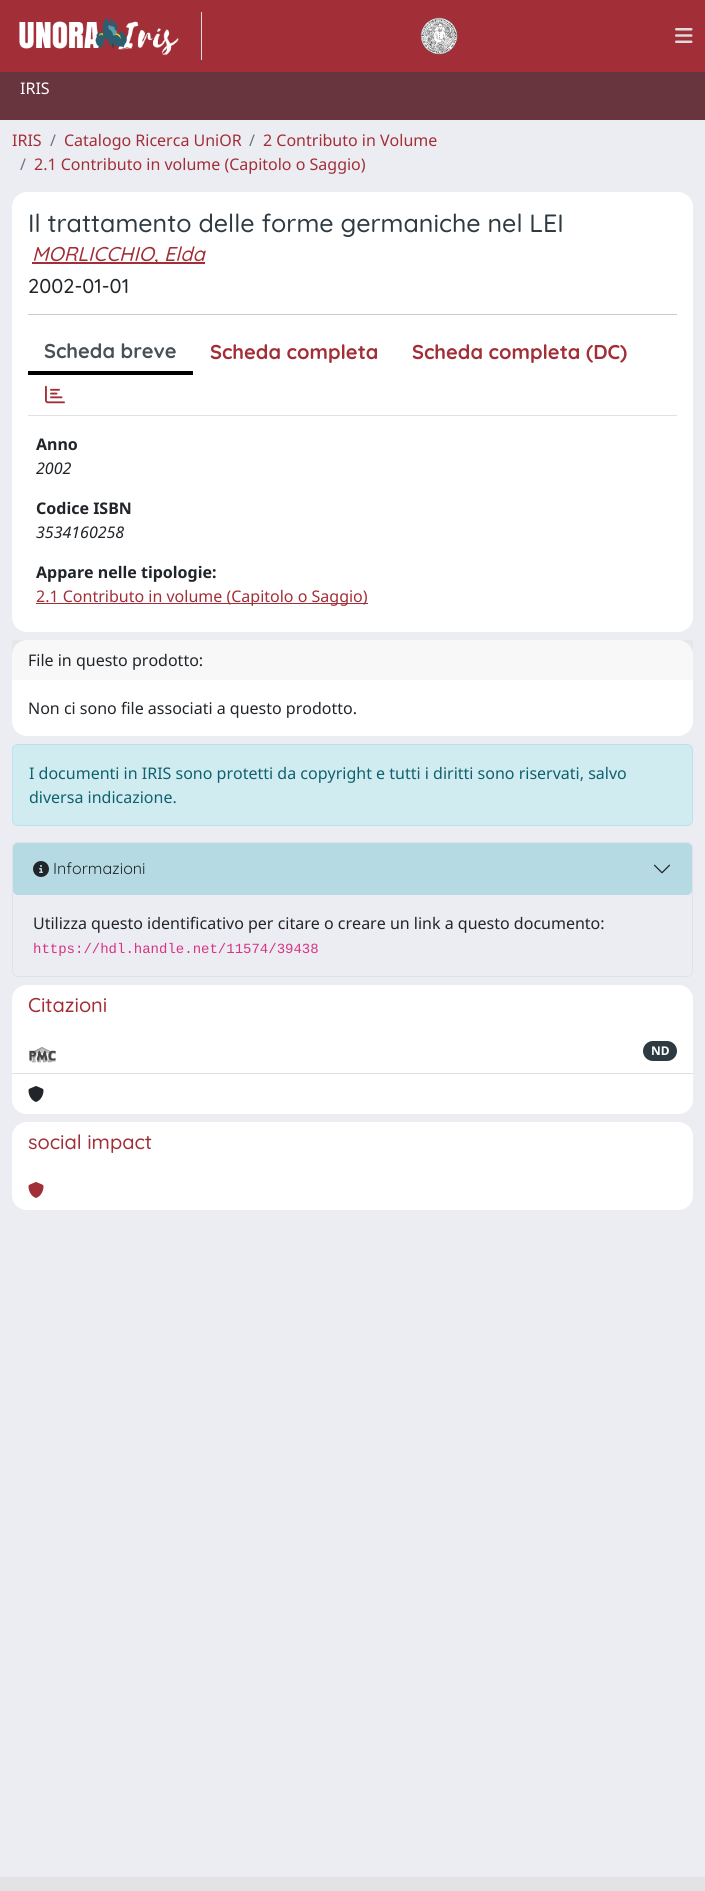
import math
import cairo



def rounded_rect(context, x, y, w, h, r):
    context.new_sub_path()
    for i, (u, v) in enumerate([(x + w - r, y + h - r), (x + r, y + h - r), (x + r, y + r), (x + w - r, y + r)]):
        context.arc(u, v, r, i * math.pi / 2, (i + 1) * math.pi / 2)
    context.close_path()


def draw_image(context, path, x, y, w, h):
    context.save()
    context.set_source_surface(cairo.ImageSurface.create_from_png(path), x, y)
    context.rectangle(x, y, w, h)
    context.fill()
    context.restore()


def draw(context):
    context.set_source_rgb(236 / 255, 237 / 255, 242 / 255)
    context.paint()
    context.set_source_rgb(162 / 255, 46 / 255, 55 / 255)
    context.rectangle(0, 0, 705, 72)
    context.fill()
    context.set_source_rgb(221 / 255, 221 / 255, 221 / 255)
    context.rectangle(201, 12, 1, 48)
    context.fill()
    draw_image(context, "images/1.png", 19, 18, 160, 38)
    draw_image(context, "images/2.png", 420, 17, 38, 38)
    draw_image(context, "images/3.png", 675, 28, 18, 15)
    context.set_source_rgb(104 / 255, 52 / 255, 61 / 255)
    context.rectangle(0, 72, 705, 48)
    context.fill()
    context.set_source_rgb(1, 1, 1)
    rounded_rect(context, 12, 192, 681, 440, 15)
    context.fill()
    context.set_source_rgb(162 / 255, 46 / 255, 55 / 255)
    context.rectangle(32, 262, 173, 2)
    context.fill()
    context.set_source_rgb(200 / 255, 201 / 255, 202 / 255)
    context.rectangle(28, 314, 649, 1)
    context.fill()
    context.set_source_rgb(222 / 255, 226 / 255, 230 / 255)
    context.rectangle(28, 415, 649, 1)
    context.fill()
    context.set_source_rgb(0, 0, 0)
    context.rectangle(28, 371, 165, 4)
    context.fill()
    draw_image(context, "images/4.png", 45, 385, 20, 19)
    context.set_source_rgb(162 / 255, 46 / 255, 55 / 255)
    context.rectangle(36, 603, 332, 1)
    context.fill()
    context.set_source_rgb(1, 1, 1)
    rounded_rect(context, 12, 640, 681, 96, 15)
    context.fill()
    context.set_source_rgba(0, 0, 0, 0.03)
    context.rectangle(12, 640, 681, 40)
    context.fill()
    context.set_source_rgb(209 / 255, 236 / 255, 241 / 255)
    rounded_rect(context, 12.5, 744.5, 680, 81, 5.5)
    context.fill_preserve()
    context.set_source_rgb(185 / 255, 227 / 255, 234 / 255)
    context.set_line_width(1)
    context.stroke()
    rounded_rect(context, 12.5, 842.5, 680, 134, 5.5)
    context.set_source_rgb(222 / 255, 226 / 255, 230 / 255)
    context.stroke()
    context.set_source_rgba(23 / 255, 162 / 255, 184 / 255, 0.25)
    rounded_rect(context, 13, 843, 679, 52, 5)
    context.fill()
    draw_image(context, "images/5.png", 33, 861, 16, 16)
    draw_image(context, "images/6.png", 653, 864, 18, 10)
    context.set_source_rgb(1, 1, 1)
    rounded_rect(context, 12, 985, 681, 129, 15)
    context.fill()
    context.new_path()
    context.move_to(27, 985)
    context.line_to(678, 985)
    context.curve_to(686.5, 985, 693, 991.5, 693, 1000)
    context.line_to(693, 1033)
    context.line_to(12, 1033)
    context.line_to(12, 1000)
    context.curve_to(12, 991.5, 18.5, 985, 27, 985)
    context.close_path()
    context.fill()
    context.set_source_rgb(223 / 255, 223 / 255, 223 / 255)
    context.rectangle(12, 1073, 681, 1)
    context.fill()
    draw_image(context, "images/7.png", 29, 1047, 27, 16)
    context.set_source_rgb(45 / 255, 58 / 255, 66 / 255)
    rounded_rect(context, 643, 1041, 34, 20, 10)
    context.fill()
    context.set_source_rgb(1, 1, 1)
    context.new_path()
    context.move_to(12, 1074)
    context.line_to(693, 1074)
    context.line_to(693, 1099)
    context.curve_to(693, 1107.5, 686.5, 1114, 678, 1114)
    context.line_to(27, 1114)
    context.curve_to(18.5, 1114, 12, 1107.5, 12, 1099)
    context.close_path()
    context.fill()
    draw_image(context, "images/8.png", 28, 1086, 16, 16)
    context.new_path()
    context.move_to(27, 1122)
    context.line_to(678, 1122)
    context.curve_to(686.5, 1122, 693, 1128.5, 693, 1137)
    context.line_to(693, 1170)
    context.line_to(12, 1170)
    context.line_to(12, 1137)
    context.curve_to(12, 1128.5, 18.5, 1122, 27, 1122)
    context.close_path()
    context.fill()
    context.new_path()
    context.move_to(12, 1170)
    context.line_to(693, 1170)
    context.line_to(693, 1195)
    context.curve_to(693, 1203.5, 686.5, 1210, 678, 1210)
    context.line_to(27, 1210)
    context.curve_to(18.5, 1210, 12, 1203.5, 12, 1195)
    context.close_path()
    context.fill()
    draw_image(context, "images/9.png", 28, 1182, 16, 16)
    context.set_source_rgb(227 / 255, 227 / 255, 229 / 255)
    context.rectangle(0, 1877, 705, 14)
    context.fill()
    context.select_font_face("Noto Sans")
    context.set_font_size(16)
    context.set_source_rgb(1, 1, 1)
    context.move_to(20, 94)
    context.show_text("IRIS")
    context.set_source_rgb(162 / 255, 46 / 255, 55 / 255)
    context.move_to(12, 146)
    context.show_text("IRIS")
    context.set_source_rgb(108 / 255, 117 / 255, 125 / 255)
    context.move_to(50, 146)
    context.show_text("/")
    context.set_source_rgb(162 / 255, 46 / 255, 55 / 255)
    context.move_to(64, 146)
    context.show_text("Catalogo Ricerca UniOR")
    context.set_source_rgb(108 / 255, 117 / 255, 125 / 255)
    context.move_to(249, 146)
    context.show_text("/")
    context.set_source_rgb(162 / 255, 46 / 255, 55 / 255)
    context.move_to(263, 146)
    context.show_text("2 Contributo in Volume")
    context.set_source_rgb(108 / 255, 117 / 255, 125 / 255)
    context.move_to(20, 170)
    context.show_text("/")
    context.set_source_rgb(162 / 255, 46 / 255, 55 / 255)
    context.move_to(34, 170)
    context.show_text("2.1 Contributo in volume (Capitolo o Saggio)")
    context.select_font_face("Quicksand Medium")
    context.set_font_size(25)
    context.set_source_rgb(45 / 255, 58 / 255, 66 / 255)
    context.move_to(28, 232)
    context.show_text("Il trattamento delle forme germaniche nel LEI")
    context.select_font_face("Quicksand Medium", cairo.FontSlant.ITALIC)
    context.set_font_size(20)
    context.set_source_rgb(162 / 255, 46 / 255, 55 / 255)
    context.move_to(32, 261)
    context.show_text("MORLICCHIO, Elda")
    context.select_font_face("Quicksand Medium")
    context.set_source_rgb(33 / 255, 37 / 255, 41 / 255)
    context.move_to(28, 293)
    context.show_text("2002-01-01")
    context.select_font_face("Quicksand", cairo.FontSlant.NORMAL, cairo.FontWeight.BOLD)
    context.set_source_rgb(73 / 255, 80 / 255, 87 / 255)
    context.move_to(44, 358)
    context.show_text("Scheda breve")
    context.set_source_rgb(162 / 255, 46 / 255, 55 / 255)
    context.move_to(210, 359)
    context.show_text("Scheda completa")
    context.move_to(412, 359)
    context.show_text("Scheda completa (DC)")
    context.select_font_face("Noto Sans", cairo.FontSlant.NORMAL, cairo.FontWeight.BOLD)
    context.set_font_size(16)
    context.set_source_rgb(33 / 255, 37 / 255, 41 / 255)
    context.move_to(36, 450)
    context.show_text("Anno")
    context.select_font_face("Noto Sans", cairo.FontSlant.ITALIC)
    context.move_to(36, 474)
    context.show_text("2002")
    context.select_font_face("Noto Sans", cairo.FontSlant.NORMAL, cairo.FontWeight.BOLD)
    context.move_to(36, 514)
    context.show_text("Codice ISBN")
    context.select_font_face("Noto Sans", cairo.FontSlant.ITALIC)
    context.move_to(36, 538)
    context.show_text("3534160258")
    context.select_font_face("Noto Sans", cairo.FontSlant.NORMAL, cairo.FontWeight.BOLD)
    context.move_to(36, 578)
    context.show_text("Appare nelle tipologie:")
    context.select_font_face("Noto Sans")
    context.set_source_rgb(162 / 255, 46 / 255, 55 / 255)
    context.move_to(36, 602)
    context.show_text("2.1 Contributo in volume (Capitolo o Saggio)")
    context.set_source_rgb(33 / 255, 37 / 255, 41 / 255)
    context.move_to(28, 666)
    context.show_text("File in questo prodotto:")
    context.move_to(28, 714)
    context.show_text("Non ci sono file associati a questo prodotto.")
    context.set_source_rgb(14 / 255, 97 / 255, 110 / 255)
    context.move_to(29, 779)
    context.show_text("I documenti in IRIS sono protetti da copyright e tutti i diritti sono riservati, salvo")
    context.move_to(29, 803)
    context.show_text("diversa indicazione.")
    context.select_font_face("Quicksand")
    context.set_source_rgb(33 / 255, 37 / 255, 41 / 255)
    context.move_to(53, 874)
    context.show_text("Informazioni")
    context.select_font_face("Noto Sans")
    context.move_to(33, 929)
    context.show_text("Utilizza questo identificativo per citare o creare un link a questo documento:")
    context.select_font_face("Liberation Mono")
    context.set_font_size(14)
    context.set_source_rgb(214 / 255, 51 / 255, 132 / 255)
    context.move_to(33, 953)
    context.show_text("https://hdl.handle.net/11574/39438")
    context.select_font_face("Quicksand Medium")
    context.set_font_size(20)
    context.set_source_rgb(162 / 255, 46 / 255, 55 / 255)
    context.move_to(28, 1012)
    context.show_text("Citazioni")
    context.select_font_face("Noto Sans", cairo.FontSlant.NORMAL, cairo.FontWeight.BOLD)
    context.set_font_size(12)
    context.set_source_rgb(1, 1, 1)
    context.move_to(651, 1055)
    context.show_text("ND")
    context.select_font_face("Quicksand Medium")
    context.set_font_size(20)
    context.set_source_rgb(162 / 255, 46 / 255, 55 / 255)
    context.move_to(28, 1149)
    context.show_text("social impact")


surface = cairo.ImageSurface(cairo.Format.RGB24, 705, 1891)
context = cairo.Context(surface)
options = cairo.FontOptions()
options.set_hint_metrics(cairo.HintMetrics.OFF)
options.set_hint_style(cairo.HintStyle.NONE)
context.set_font_options(options)
context.set_miter_limit(4)
draw(context)
surface.write_to_png("out.png")
